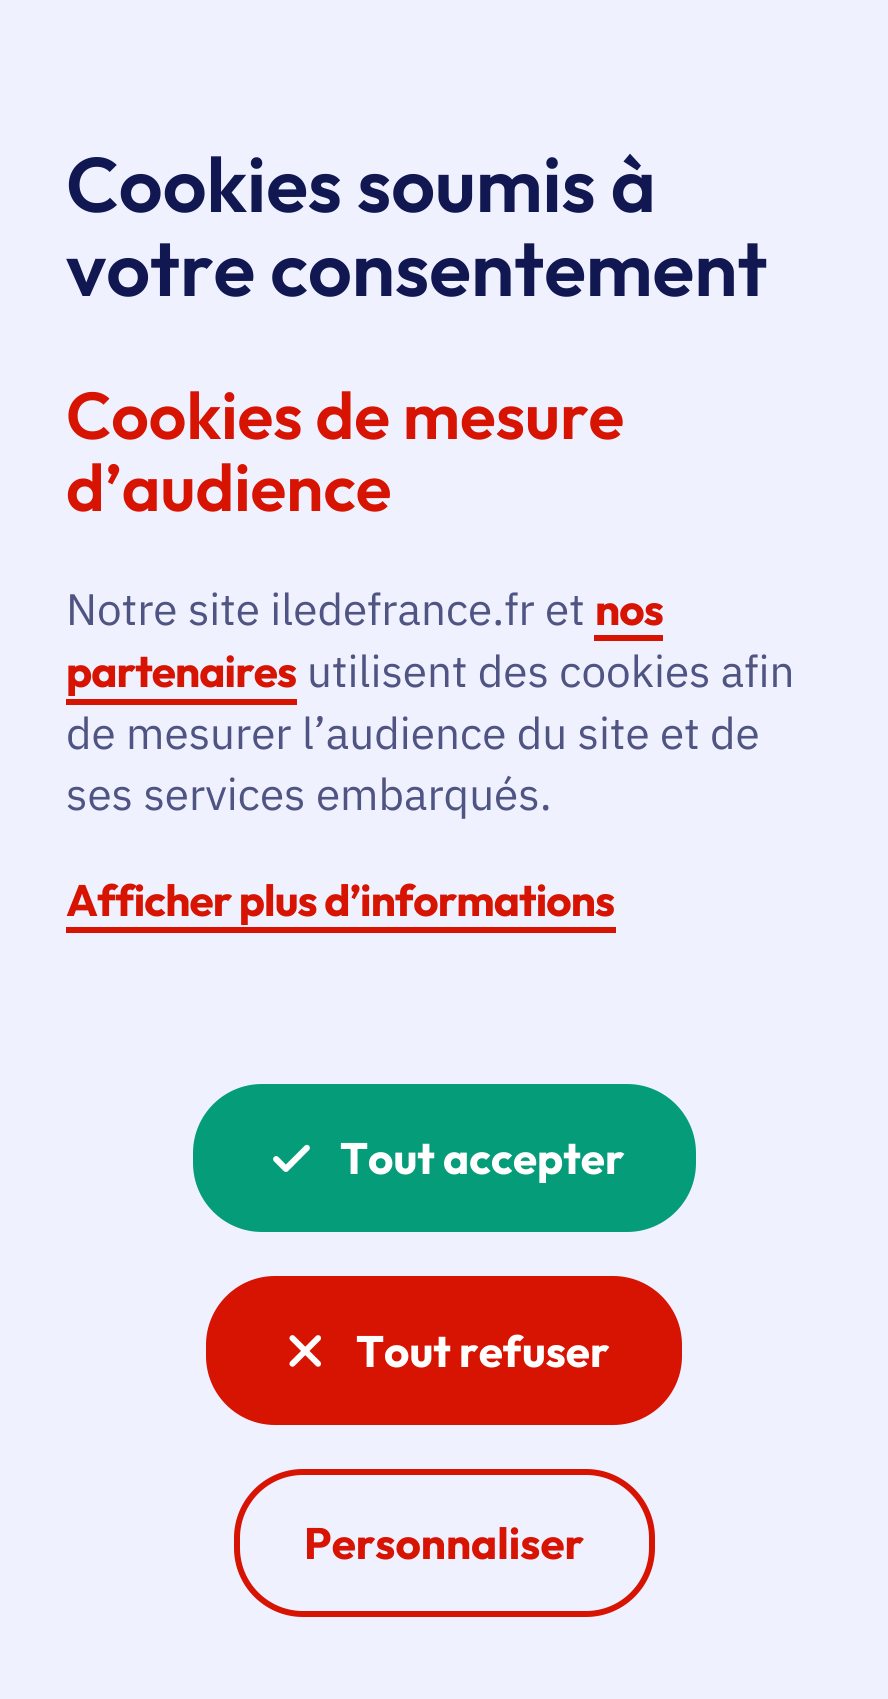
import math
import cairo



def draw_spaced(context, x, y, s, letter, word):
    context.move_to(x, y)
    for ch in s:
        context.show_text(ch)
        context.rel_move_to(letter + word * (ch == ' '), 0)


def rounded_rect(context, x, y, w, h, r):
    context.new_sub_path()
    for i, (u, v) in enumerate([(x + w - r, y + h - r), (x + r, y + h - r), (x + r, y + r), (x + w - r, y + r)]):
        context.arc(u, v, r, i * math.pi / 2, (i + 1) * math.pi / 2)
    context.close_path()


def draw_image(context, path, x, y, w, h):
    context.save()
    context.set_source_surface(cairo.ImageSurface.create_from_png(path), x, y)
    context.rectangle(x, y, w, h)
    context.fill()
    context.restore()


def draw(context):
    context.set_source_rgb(239 / 255, 241 / 255, 1)
    context.paint()
    context.set_source_rgb(215 / 255, 19 / 255, 2 / 255)
    context.rectangle(594, 635, 69, 6)
    context.fill()
    context.rectangle(66, 699, 231, 6)
    context.fill()
    context.rectangle(66, 927, 550, 6)
    context.fill()
    context.set_source_rgb(5 / 255, 157 / 255, 121 / 255)
    rounded_rect(context, 196, 1087, 497, 142, 66)
    context.fill_preserve()
    context.set_line_width(6)
    context.stroke()
    draw_image(context, "images/1.png", 273, 1144, 37, 28)
    context.set_source_rgb(215 / 255, 19 / 255, 2 / 255)
    rounded_rect(context, 209, 1279, 470, 143, 66)
    context.fill_preserve()
    context.stroke()
    draw_image(context, "images/2.png", 289, 1335, 32, 32)
    rounded_rect(context, 237, 1472, 415, 142, 66)
    context.stroke()
    context.select_font_face("Outfit SemiBold")
    context.set_font_size(77)
    context.set_source_rgb(17 / 255, 23 / 255, 81 / 255)
    context.move_to(66, 212)
    context.show_text("Cookies soumis à")
    context.move_to(66, 296)
    context.show_text("votre consentement")
    context.set_font_size(66)
    context.set_source_rgb(215 / 255, 19 / 255, 2 / 255)
    context.move_to(66, 439)
    context.show_text("Cookies de mesure")
    context.move_to(66, 511)
    context.show_text("d’audience")
    context.select_font_face("IBM Plex Sans")
    context.set_font_size(44)
    context.set_source_rgb(79 / 255, 84 / 255, 130 / 255)
    context.move_to(66, 625)
    context.show_text("Notre site iledefrance.fr et")
    context.select_font_face("Outfit", cairo.FontSlant.NORMAL, cairo.FontWeight.BOLD)
    context.set_source_rgb(215 / 255, 19 / 255, 2 / 255)
    draw_spaced(context, 595, 625, "nos", -0.9, 0)
    draw_spaced(context, 66, 687, "partenaires", -0.9, 0)
    context.select_font_face("IBM Plex Sans")
    context.set_source_rgb(79 / 255, 84 / 255, 130 / 255)
    context.move_to(307, 687)
    context.show_text("utilisent des cookies afin")
    context.move_to(66, 749)
    context.show_text("de mesurer l’audience du site et de")
    context.move_to(66, 810)
    context.show_text("ses services embarqués.")
    context.select_font_face("Outfit", cairo.FontSlant.NORMAL, cairo.FontWeight.BOLD)
    context.set_source_rgb(215 / 255, 19 / 255, 2 / 255)
    draw_spaced(context, 66, 916, "Afficher plus d’informations", -0.9, 0)
    context.set_source_rgb(1, 1, 1)
    context.move_to(340, 1174)
    context.show_text("Tout accepter")
    context.move_to(356, 1367)
    context.show_text("Tout refuser")
    context.set_source_rgb(215 / 255, 19 / 255, 2 / 255)
    context.move_to(304, 1559)
    context.show_text("Personnaliser")


surface = cairo.ImageSurface(cairo.Format.RGB24, 888, 1699)
context = cairo.Context(surface)
options = cairo.FontOptions()
options.set_hint_metrics(cairo.HintMetrics.OFF)
options.set_hint_style(cairo.HintStyle.NONE)
context.set_font_options(options)
context.set_miter_limit(4)
draw(context)
surface.write_to_png("out.png")
